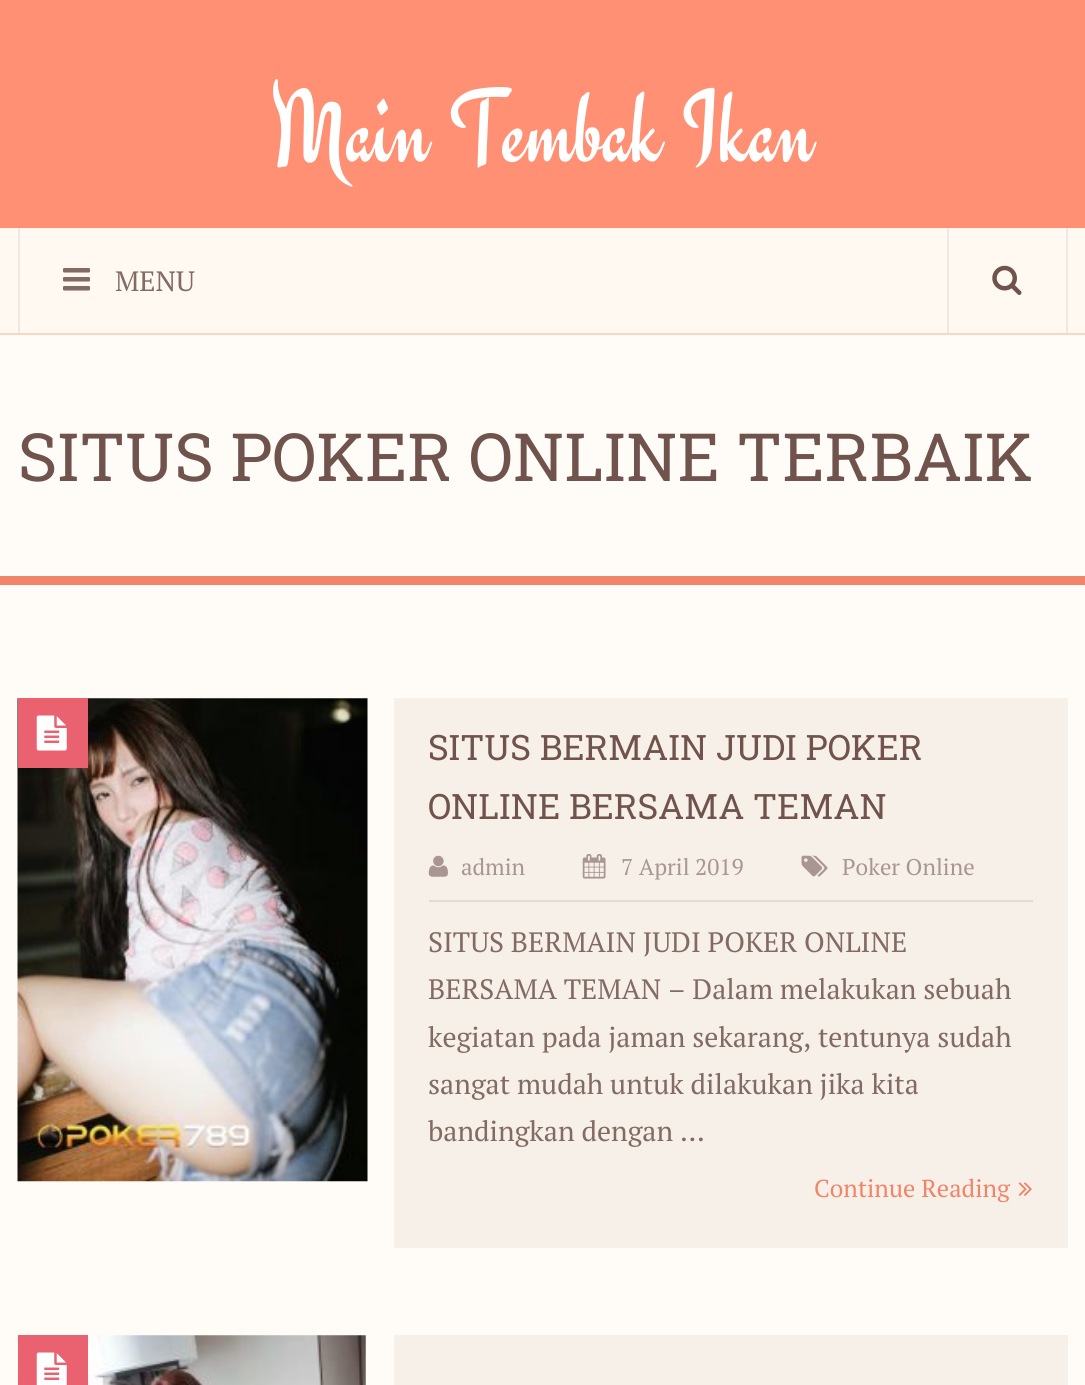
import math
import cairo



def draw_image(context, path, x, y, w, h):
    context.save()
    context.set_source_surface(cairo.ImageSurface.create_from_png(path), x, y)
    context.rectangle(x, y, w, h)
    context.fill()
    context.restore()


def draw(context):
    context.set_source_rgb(1, 251 / 255, 246 / 255)
    context.paint()
    context.set_source_rgb(1, 144 / 255, 116 / 255)
    context.rectangle(0, 0, 1085, 228)
    context.fill()
    context.set_source_rgb(248 / 255, 214 / 255, 191 / 255)
    context.rectangle(0, 333, 1085, 2)
    context.fill()
    context.set_source_rgb(1, 249 / 255, 241 / 255)
    context.rectangle(20, 228, 1065, 105)
    context.fill()
    context.set_source_rgb(239 / 255, 232 / 255, 228 / 255)
    context.rectangle(18, 228, 2, 105)
    context.fill()
    context.set_source_rgb(1, 249 / 255, 241 / 255)
    context.rectangle(0, 228, 18, 105)
    context.fill()
    draw_image(context, "images/1.png", 63, 268, 27, 23)
    context.set_source_rgb(239 / 255, 232 / 255, 228 / 255)
    context.rectangle(1066, 228, 2, 105)
    context.fill()
    context.rectangle(947, 228, 2, 105)
    context.fill()
    draw_image(context, "images/2.png", 992, 265, 30, 30)
    context.set_source_rgb(241 / 255, 132 / 255, 105 / 255)
    context.rectangle(0, 576, 1085, 9)
    context.fill()
    draw_image(context, "images/3.png", 17, 698, 351, 484)
    context.set_source_rgb(234 / 255, 97 / 255, 112 / 255)
    context.rectangle(18, 698, 70, 70)
    context.fill()
    draw_image(context, "images/4.png", 36, 715, 31, 36)
    context.set_source_rgb(246 / 255, 240 / 255, 232 / 255)
    context.rectangle(394, 698, 674, 550)
    context.fill()
    context.set_source_rgb(229 / 255, 219 / 255, 204 / 255)
    context.rectangle(429, 900, 604, 2)
    context.fill()
    draw_image(context, "images/5.png", 428, 855, 20, 22)
    draw_image(context, "images/6.png", 582, 854, 24, 25)
    draw_image(context, "images/7.png", 801, 855, 27, 22)
    draw_image(context, "images/8.png", 1018, 1182, 14, 14)
    draw_image(context, "images/9.png", 17, 1335, 349, 50)
    context.set_source_rgb(234 / 255, 97 / 255, 112 / 255)
    context.rectangle(18, 1335, 70, 50)
    context.fill()
    draw_image(context, "images/10.png", 36, 1352, 31, 33)
    context.set_source_rgb(246 / 255, 240 / 255, 232 / 255)
    context.rectangle(394, 1335, 674, 50)
    context.fill()
    context.select_font_face("Engagement")
    context.set_font_size(105)
    context.set_source_rgb(1, 1, 1)
    context.move_to(271, 161)
    context.show_text("Main Tembak Ikan")
    context.select_font_face("PT Serif")
    context.set_font_size(28)
    context.set_source_rgb(131 / 255, 107 / 255, 101 / 255)
    context.move_to(115, 291)
    context.show_text("MENU")
    context.select_font_face("Roboto Slab")
    context.set_font_size(66.5)
    context.set_source_rgb(112 / 255, 83 / 255, 76 / 255)
    context.move_to(18, 481)
    context.show_text("SITUS POKER ONLINE TERBAIK")
    context.set_font_size(35)
    context.move_to(428, 760)
    context.show_text("SITUS BERMAIN JUDI POKER")
    context.move_to(428, 819)
    context.show_text("ONLINE BERSAMA TEMAN")
    context.select_font_face("PT Serif")
    context.set_font_size(22.75)
    context.set_source_rgb(169 / 255, 150 / 255, 146 / 255)
    context.move_to(461, 875)
    context.show_text("admin")
    context.move_to(621, 875)
    context.show_text("7 April 2019")
    context.move_to(842, 875)
    context.show_text("Poker Online")
    context.set_font_size(28)
    context.set_source_rgb(131 / 255, 107 / 255, 101 / 255)
    context.move_to(428, 952)
    context.show_text("SITUS BERMAIN JUDI POKER ONLINE")
    context.move_to(428, 999)
    context.show_text("BERSAMA TEMAN – Dalam melakukan sebuah")
    context.move_to(428, 1047)
    context.show_text("kegiatan pada jaman sekarang, tentunya sudah")
    context.move_to(428, 1094)
    context.show_text("sangat mudah untuk dilakukan jika kita")
    context.move_to(428, 1141)
    context.show_text("bandingkan dengan …")
    context.set_font_size(24.5)
    context.set_source_rgb(241 / 255, 132 / 255, 105 / 255)
    context.move_to(814, 1197)
    context.show_text("Continue Reading")


surface = cairo.ImageSurface(cairo.Format.RGB24, 1085, 1385)
context = cairo.Context(surface)
options = cairo.FontOptions()
options.set_hint_metrics(cairo.HintMetrics.OFF)
options.set_hint_style(cairo.HintStyle.NONE)
context.set_font_options(options)
context.set_miter_limit(4)
draw(context)
surface.write_to_png("out.png")
